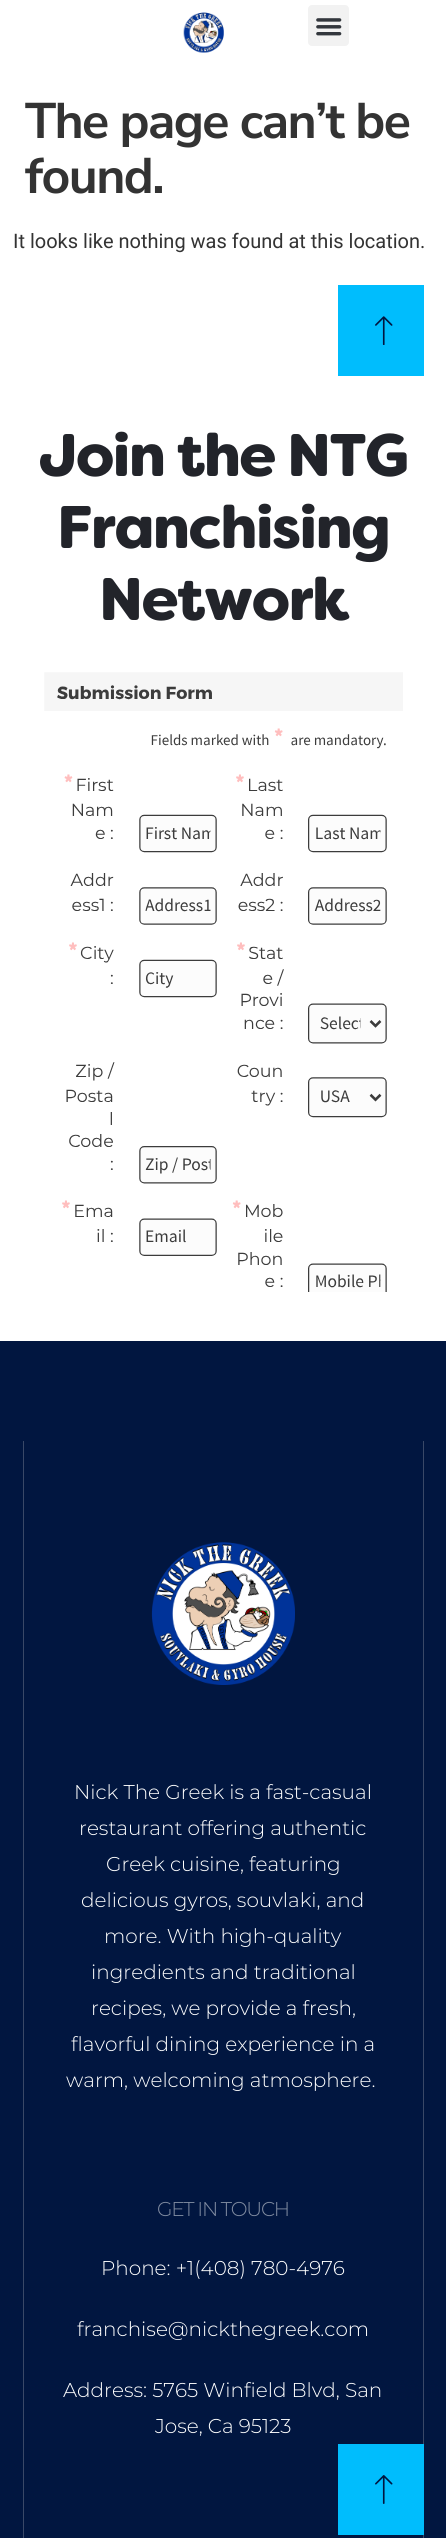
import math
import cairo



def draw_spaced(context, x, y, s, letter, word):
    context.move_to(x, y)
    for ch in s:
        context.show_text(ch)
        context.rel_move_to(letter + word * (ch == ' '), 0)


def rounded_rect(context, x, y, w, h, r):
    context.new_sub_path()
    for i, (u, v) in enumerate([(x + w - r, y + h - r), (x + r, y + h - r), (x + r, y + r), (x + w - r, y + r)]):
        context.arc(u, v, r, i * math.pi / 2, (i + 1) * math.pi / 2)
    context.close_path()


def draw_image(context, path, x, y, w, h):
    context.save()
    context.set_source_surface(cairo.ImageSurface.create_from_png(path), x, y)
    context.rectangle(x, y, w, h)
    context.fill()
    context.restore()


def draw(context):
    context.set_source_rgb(1, 1, 1)
    context.paint()
    draw_image(context, "images/1.png", 183, 12, 41, 41)
    context.set_source_rgb(242 / 255, 242 / 255, 242 / 255)
    rounded_rect(context, 308, 5, 41, 41, 4)
    context.fill()
    draw_image(context, "images/2.png", 316, 18, 26, 18)
    context.set_source_rgb(0, 189 / 255, 253 / 255)
    context.rectangle(338, 285, 86, 91)
    context.fill()
    draw_image(context, "images/3.png", 375, 316, 18, 29)
    draw_image(context, "images/4.png", 44, 672, 359, 620)
    context.set_source_rgb(1 / 255, 22 / 255, 64 / 255)
    context.rectangle(0, 1341, 446, 1197)
    context.fill()
    context.set_source_rgb(57 / 255, 72 / 255, 103 / 255)
    context.rectangle(423, 1441, 1, 1097)
    context.fill()
    context.rectangle(23, 1441, 1, 1097)
    context.fill()
    draw_image(context, "images/5.png", 151, 1542, 144, 143)
    context.set_source_rgb(0, 189 / 255, 253 / 255)
    context.rectangle(338, 2444, 86, 91)
    context.fill()
    draw_image(context, "images/6.png", 375, 2475, 18, 29)
    context.select_font_face("Nunito Sans", cairo.FontSlant.NORMAL, cairo.FontWeight.BOLD)
    context.set_font_size(50)
    context.set_source_rgb(51 / 255, 51 / 255, 51 / 255)
    draw_spaced(context, 25, 138, "The page can’t be", -1.6, 0)
    draw_spaced(context, 25, 193, "found.", -1.6, 0)
    context.select_font_face("Roboto")
    context.set_font_size(20)
    context.move_to(13, 248)
    context.show_text("It looks like nothing was found at this location.")
    context.select_font_face("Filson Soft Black")
    context.set_font_size(60)
    context.set_source_rgb(34 / 255, 36 / 255, 42 / 255)
    draw_spaced(context, 39, 476, "Join the NTG", -1.6, 0)
    draw_spaced(context, 57, 548, "Franchising", -1.6, 0)
    draw_spaced(context, 99, 620, "Network", -1.6, 0)
    context.select_font_face("Montserrat Light")
    context.set_font_size(20)
    context.set_source_rgb(1, 1, 1)
    context.move_to(74, 1799)
    context.show_text("Nick The Greek is a fast-casual")
    context.move_to(79, 1835)
    context.show_text("restaurant offering authentic")
    context.move_to(106, 1871)
    context.show_text("Greek cuisine, featuring")
    context.move_to(81, 1907)
    context.show_text("delicious gyros, souvlaki, and")
    context.move_to(104, 1943)
    context.show_text("more. With high-quality")
    context.move_to(91, 1979)
    context.show_text("ingredients and traditional")
    context.move_to(91, 2015)
    context.show_text("recipes, we provide a fresh,")
    context.move_to(71, 2051)
    context.show_text("flavorful dining experience in a")
    context.move_to(66, 2087)
    context.show_text("warm, welcoming atmosphere.")
    context.set_source_rgb(128 / 255, 139 / 255, 160 / 255)
    draw_spaced(context, 157, 2216, "GET IN TOUCH", -1.25, 0)
    context.set_source_rgb(1, 1, 1)
    context.move_to(101, 2275)
    context.show_text("Phone: +1(408) 780-4976")
    context.move_to(77, 2336)
    context.show_text("franchise@nickthegreek.com")
    context.move_to(63, 2397)
    context.show_text("Address: 5765 Winfield Blvd, San")
    context.move_to(155, 2433)
    context.show_text("Jose, Ca 95123")


surface = cairo.ImageSurface(cairo.Format.RGB24, 446, 2538)
context = cairo.Context(surface)
options = cairo.FontOptions()
options.set_hint_metrics(cairo.HintMetrics.OFF)
options.set_hint_style(cairo.HintStyle.NONE)
context.set_font_options(options)
context.set_miter_limit(4)
draw(context)
surface.write_to_png("out.png")
